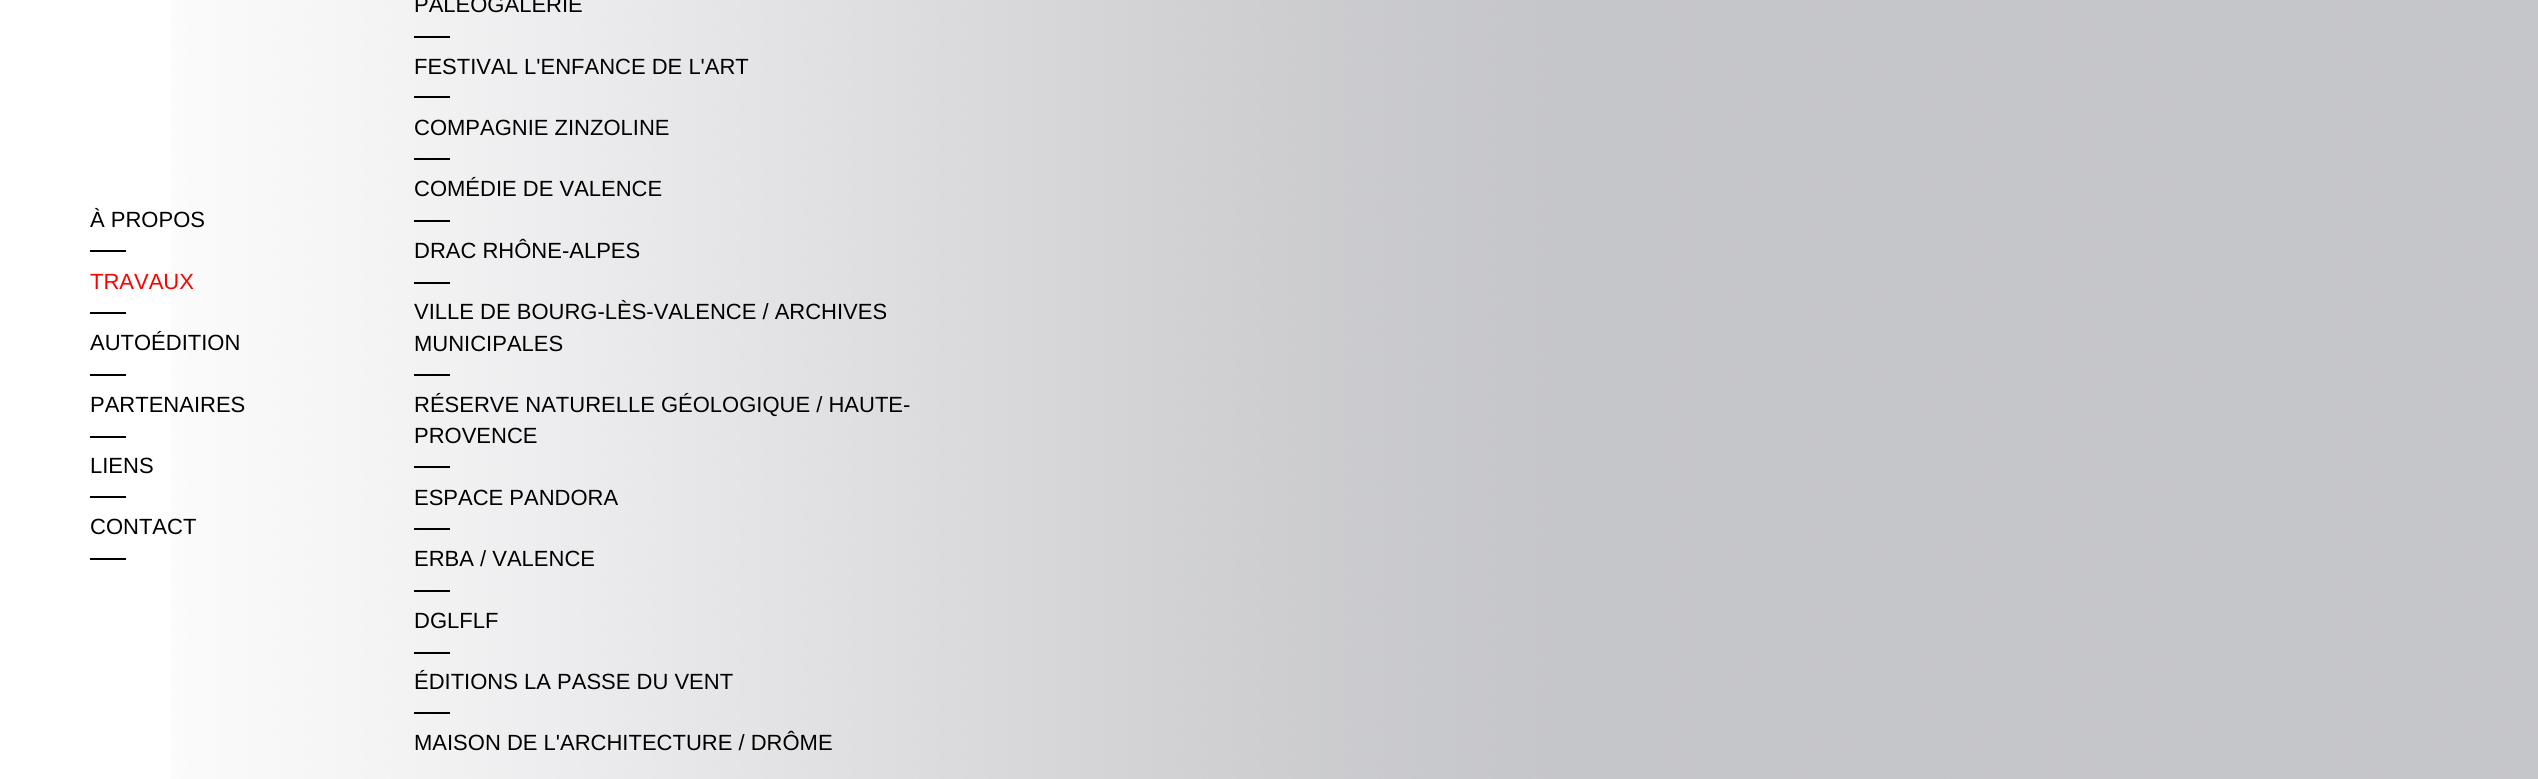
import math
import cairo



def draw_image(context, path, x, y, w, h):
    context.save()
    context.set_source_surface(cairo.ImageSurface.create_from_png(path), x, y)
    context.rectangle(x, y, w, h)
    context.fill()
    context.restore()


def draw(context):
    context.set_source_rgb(1, 1, 1)
    context.paint()
    draw_image(context, "images/1.png", 171, 0, 2367, 779)
    context.set_source_rgb(0, 0, 0)
    context.rectangle(90, 250, 36, 2)
    context.fill()
    context.rectangle(90, 312, 36, 2)
    context.fill()
    context.rectangle(90, 374, 36, 2)
    context.fill()
    context.rectangle(90, 436, 36, 2)
    context.fill()
    context.rectangle(90, 496, 36, 2)
    context.fill()
    context.rectangle(90, 558, 36, 2)
    context.fill()
    context.rectangle(414, 36, 36, 2)
    context.fill()
    context.rectangle(414, 96, 36, 2)
    context.fill()
    context.rectangle(414, 158, 36, 2)
    context.fill()
    context.rectangle(414, 220, 36, 2)
    context.fill()
    context.rectangle(414, 282, 36, 2)
    context.fill()
    context.rectangle(414, 374, 36, 2)
    context.fill()
    context.rectangle(414, 466, 36, 2)
    context.fill()
    context.rectangle(414, 528, 36, 2)
    context.fill()
    context.rectangle(414, 590, 36, 2)
    context.fill()
    context.rectangle(414, 652, 36, 2)
    context.fill()
    context.rectangle(414, 712, 36, 2)
    context.fill()
    context.select_font_face("Liberation Sans")
    context.set_font_size(22)
    context.move_to(90, 227)
    context.show_text("À PROPOS")
    context.set_source_rgb(1, 0, 0)
    context.move_to(90, 289)
    context.show_text("TRAVAUX")
    context.set_source_rgb(0, 0, 0)
    context.move_to(90, 350)
    context.show_text("AUTOÉDITION")
    context.move_to(90, 412)
    context.show_text("PARTENAIRES")
    context.move_to(90, 473)
    context.show_text("LIENS")
    context.move_to(90, 534)
    context.show_text("CONTACT")
    context.move_to(414, 12)
    context.show_text("PALÉOGALERIE")
    context.move_to(414, 74)
    context.show_text("FESTIVAL L'ENFANCE DE L'ART")
    context.move_to(414, 135)
    context.show_text("COMPAGNIE ZINZOLINE")
    context.move_to(414, 196)
    context.show_text("COMÉDIE DE VALENCE")
    context.move_to(414, 258)
    context.show_text("DRAC RHÔNE-ALPES")
    context.move_to(414, 319)
    context.show_text("VILLE DE BOURG-LÈS-VALENCE / ARCHIVES")
    context.move_to(414, 351)
    context.show_text("MUNICIPALES")
    context.move_to(414, 412)
    context.show_text("RÉSERVE NATURELLE GÉOLOGIQUE / HAUTE-")
    context.move_to(414, 443)
    context.show_text("PROVENCE")
    context.move_to(414, 505)
    context.show_text("ESPACE PANDORA")
    context.move_to(414, 566)
    context.show_text("ERBA / VALENCE")
    context.move_to(414, 628)
    context.show_text("DGLFLF")
    context.move_to(414, 689)
    context.show_text("ÉDITIONS LA PASSE DU VENT")
    context.move_to(414, 750)
    context.show_text("MAISON DE L'ARCHITECTURE / DRÔME")


surface = cairo.ImageSurface(cairo.Format.RGB24, 2538, 779)
context = cairo.Context(surface)
options = cairo.FontOptions()
options.set_hint_metrics(cairo.HintMetrics.OFF)
options.set_hint_style(cairo.HintStyle.NONE)
context.set_font_options(options)
context.set_miter_limit(4)
draw(context)
surface.write_to_png("out.png")
